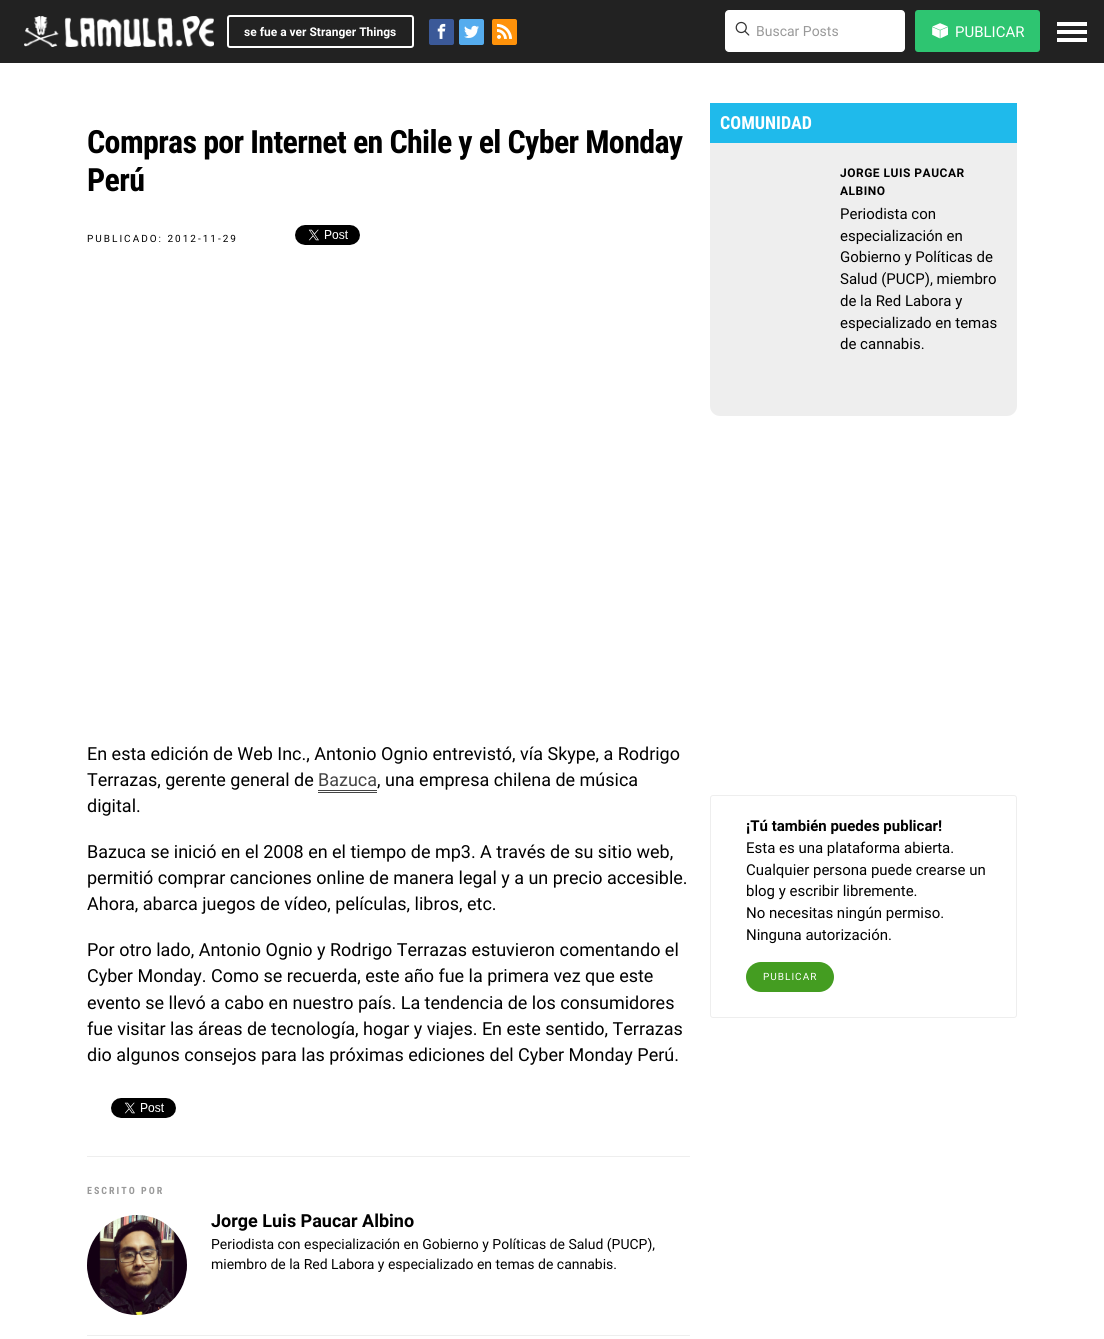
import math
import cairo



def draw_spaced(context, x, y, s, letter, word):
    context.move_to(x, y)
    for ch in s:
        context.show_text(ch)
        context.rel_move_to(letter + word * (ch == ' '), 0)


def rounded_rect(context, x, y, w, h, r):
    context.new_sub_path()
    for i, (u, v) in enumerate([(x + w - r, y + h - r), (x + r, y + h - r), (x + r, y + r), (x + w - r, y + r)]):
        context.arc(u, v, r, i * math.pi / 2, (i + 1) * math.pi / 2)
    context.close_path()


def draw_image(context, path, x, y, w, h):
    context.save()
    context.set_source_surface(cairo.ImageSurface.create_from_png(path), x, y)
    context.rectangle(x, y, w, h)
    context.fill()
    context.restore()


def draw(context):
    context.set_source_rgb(1, 1, 1)
    context.paint()
    context.set_source_rgb(34 / 255, 34 / 255, 34 / 255)
    context.rectangle(0, 0, 1104, 63)
    context.fill()
    draw_image(context, "images/1.png", 24, 16, 190, 31)
    rounded_rect(context, 228, 16, 185, 31, 2)
    context.set_source_rgb(1, 1, 1)
    context.stroke()
    context.set_source_rgb(59 / 255, 89 / 255, 152 / 255)
    rounded_rect(context, 429, 19, 25, 26, 2)
    context.fill()
    draw_image(context, "images/2.png", 437, 23, 9, 16)
    context.set_source_rgb(85 / 255, 172 / 255, 238 / 255)
    rounded_rect(context, 459, 19, 25, 26, 2)
    context.fill()
    draw_image(context, "images/3.png", 464, 25, 15, 13)
    context.set_source_rgb(1, 146 / 255, 10 / 255)
    rounded_rect(context, 492, 19, 25, 26, 2)
    context.fill()
    draw_image(context, "images/4.png", 497, 23, 15, 16)
    context.set_source_rgb(1, 1, 1)
    rounded_rect(context, 725, 10, 180, 42, 4)
    context.fill()
    draw_image(context, "images/5.png", 735, 21, 15, 15)
    context.set_source_rgb(46 / 255, 197 / 255, 113 / 255)
    rounded_rect(context, 915, 10, 125, 42, 3)
    context.fill()
    draw_image(context, "images/6.png", 932, 23, 16, 16)
    context.set_source_rgb(1, 1, 1)
    context.rectangle(1057, 22, 30, 4)
    context.fill()
    context.rectangle(1057, 30, 30, 4)
    context.fill()
    context.rectangle(1057, 38, 30, 4)
    context.fill()
    draw_image(context, "images/7.png", 295, 225, 65, 20)
    context.set_source_rgb(68 / 255, 68 / 255, 68 / 255)
    context.rectangle(318, 790, 59, 1)
    context.fill()
    context.rectangle(318, 792, 59, 1)
    context.fill()
    draw_image(context, "images/8.png", 111, 1098, 65, 20)
    context.set_source_rgb(238 / 255, 238 / 255, 238 / 255)
    context.rectangle(87, 1156, 603, 1)
    context.fill()
    draw_image(context, "images/9.png", 87, 1215, 100, 100)
    context.rectangle(87, 1335, 603, 1)
    context.fill()
    context.set_source_rgb(31 / 255, 186 / 255, 235 / 255)
    context.rectangle(710, 103, 307, 40)
    context.fill()
    context.set_source_rgb(238 / 255, 238 / 255, 238 / 255)
    context.new_path()
    context.move_to(710, 143)
    context.line_to(1017, 143)
    context.line_to(1017, 406)
    context.curve_to(1017, 411.5, 1012.5, 416, 1007, 416)
    context.line_to(720, 416)
    context.curve_to(714.5, 416, 710, 411.5, 710, 406)
    context.close_path()
    context.fill()
    rounded_rect(context, 710.5, 795.5, 306, 222, 2.5)
    context.set_line_width(1)
    context.stroke()
    context.set_source_rgb(68 / 255, 157 / 255, 33 / 255)
    rounded_rect(context, 746, 962, 88, 30, 15)
    context.fill()
    context.select_font_face("Roboto", cairo.FontSlant.NORMAL, cairo.FontWeight.BOLD)
    context.set_font_size(12)
    context.set_source_rgb(1, 1, 1)
    context.move_to(244, 36)
    context.show_text("se fue a ver Stranger Things")
    context.select_font_face("Roboto")
    context.set_font_size(14)
    context.set_source_rgb(153 / 255, 153 / 255, 153 / 255)
    context.move_to(756, 36)
    context.show_text("Buscar Posts")
    context.set_font_size(15)
    context.set_source_rgb(1, 1, 1)
    context.move_to(955, 37)
    context.show_text("PUBLICAR")
    context.select_font_face("Roboto Condensed", cairo.FontSlant.NORMAL, cairo.FontWeight.BOLD)
    context.set_font_size(32)
    context.set_source_rgb(0, 0, 0)
    draw_spaced(context, 87, 153, "Compras por Internet en Chile y el Cyber Monday", -0.65, 0)
    draw_spaced(context, 87, 191, "Perú", -0.65, 0)
    context.select_font_face("Roboto")
    context.set_font_size(10)
    draw_spaced(context, 87, 242, "PUBLICADO: 2012-11-29", 2, 0)
    context.set_font_size(18)
    context.move_to(87, 760)
    context.show_text("En esta edición de Web Inc., Antonio Ognio entrevistó, vía Skype, a Rodrigo")
    context.move_to(87, 786)
    context.show_text("Terrazas, gerente general de")
    context.set_source_rgb(68 / 255, 68 / 255, 68 / 255)
    context.move_to(318, 786)
    context.show_text("Bazuca")
    context.set_source_rgb(0, 0, 0)
    context.move_to(377, 786)
    context.show_text(", una empresa chilena de música")
    context.move_to(87, 812)
    context.show_text("digital.")
    context.move_to(87, 858)
    context.show_text("Bazuca se inició en el 2008 en el tiempo de mp3. A través de su sitio web,")
    context.move_to(87, 884)
    context.show_text("permitió comprar canciones online de manera legal y a un precio accesible.")
    context.move_to(87, 910)
    context.show_text("Ahora, abarca juegos de vídeo, películas, libros, etc.")
    context.move_to(87, 956)
    context.show_text("Por otro lado, Antonio Ognio y Rodrigo Terrazas estuvieron comentando el")
    context.move_to(87, 982)
    context.show_text("Cyber Monday. Como se recuerda, este año fue la primera vez que este")
    context.move_to(87, 1009)
    context.show_text("evento se llevó a cabo en nuestro país. La tendencia de los consumidores")
    context.move_to(87, 1035)
    context.show_text("fue visitar las áreas de tecnología, hogar y viajes. En este sentido, Terrazas")
    context.move_to(87, 1061)
    context.show_text("dio algunos consejos para las próximas ediciones del Cyber Monday Perú.")
    context.select_font_face("Roboto Condensed", cairo.FontSlant.NORMAL, cairo.FontWeight.BOLD)
    context.set_font_size(10)
    context.set_source_rgb(153 / 255, 153 / 255, 153 / 255)
    draw_spaced(context, 87, 1194, "ESCRITO POR", 2, 0)
    context.select_font_face("Roboto", cairo.FontSlant.NORMAL, cairo.FontWeight.BOLD)
    context.set_font_size(18)
    context.set_source_rgb(0, 0, 0)
    context.move_to(211, 1227)
    context.show_text("Jorge Luis Paucar Albino")
    context.select_font_face("Roboto")
    context.set_font_size(14)
    context.move_to(211, 1249)
    context.show_text("Periodista con especialización en Gobierno y Políticas de Salud (PUCP),")
    context.move_to(211, 1269)
    context.show_text("miembro de la Red Labora y especializado en temas de cannabis.")
    context.select_font_face("Roboto Condensed", cairo.FontSlant.NORMAL, cairo.FontWeight.BOLD)
    context.set_font_size(18)
    context.set_source_rgb(1, 1, 1)
    context.move_to(720, 129)
    context.show_text("COMUNIDAD")
    context.select_font_face("Roboto", cairo.FontSlant.NORMAL, cairo.FontWeight.BOLD)
    context.set_font_size(12)
    context.set_source_rgb(0, 0, 0)
    draw_spaced(context, 840, 177, "JORGE LUIS PAUCAR", 0.5, 0)
    draw_spaced(context, 840, 195, "ALBINO", 0.5, 0)
    context.select_font_face("Roboto")
    context.set_font_size(15)
    context.move_to(840, 219)
    context.show_text("Periodista con")
    context.move_to(840, 241)
    context.show_text("especialización en")
    context.move_to(840, 262)
    context.show_text("Gobierno y Políticas de")
    context.move_to(840, 284)
    context.show_text("Salud (PUCP), miembro")
    context.move_to(840, 306)
    context.show_text("de la Red Labora y")
    context.move_to(840, 328)
    context.show_text("especializado en temas")
    context.move_to(840, 349)
    context.show_text("de cannabis.")
    context.select_font_face("Roboto", cairo.FontSlant.NORMAL, cairo.FontWeight.BOLD)
    context.move_to(746, 831)
    context.show_text("¡Tú también puedes publicar!")
    context.select_font_face("Roboto")
    context.move_to(746, 853)
    context.show_text("Esta es una plataforma abierta.")
    context.move_to(746, 875)
    context.show_text("Cualquier persona puede crearse un")
    context.move_to(746, 896)
    context.show_text("blog y escribir libremente.")
    context.move_to(746, 918)
    context.show_text("No necesitas ningún permiso.")
    context.move_to(746, 940)
    context.show_text("Ninguna autorización.")
    context.set_font_size(10)
    context.set_source_rgb(1, 1, 1)
    draw_spaced(context, 763, 980, "PUBLICAR", 1, 0)


surface = cairo.ImageSurface(cairo.Format.RGB24, 1104, 1339)
context = cairo.Context(surface)
options = cairo.FontOptions()
options.set_hint_metrics(cairo.HintMetrics.OFF)
options.set_hint_style(cairo.HintStyle.NONE)
context.set_font_options(options)
context.set_miter_limit(4)
draw(context)
surface.write_to_png("out.png")
